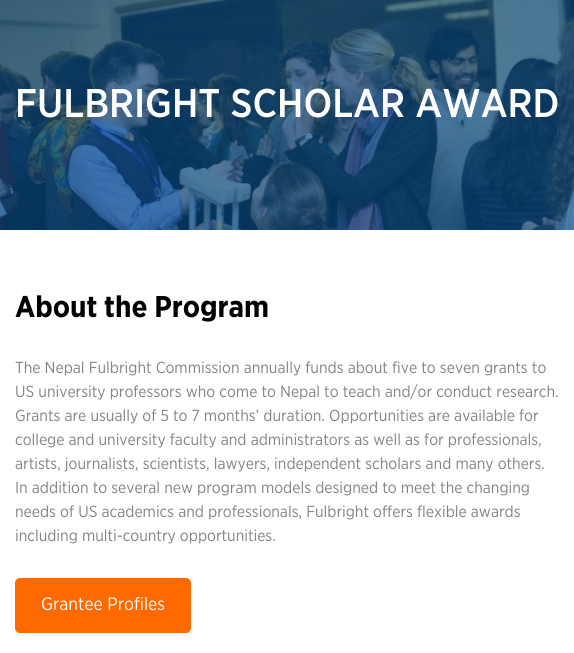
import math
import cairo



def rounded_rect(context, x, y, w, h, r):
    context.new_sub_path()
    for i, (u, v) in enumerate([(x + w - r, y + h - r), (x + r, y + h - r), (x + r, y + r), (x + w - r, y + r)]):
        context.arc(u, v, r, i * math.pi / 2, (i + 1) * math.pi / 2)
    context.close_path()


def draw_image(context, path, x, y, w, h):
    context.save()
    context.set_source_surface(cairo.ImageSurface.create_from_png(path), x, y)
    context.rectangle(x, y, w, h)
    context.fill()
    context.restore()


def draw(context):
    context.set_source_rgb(1, 1, 1)
    context.paint()
    draw_image(context, "images/1.png", 0, 0, 574, 230)
    context.set_source_rgb(1, 105 / 255, 0)
    rounded_rect(context, 15, 578, 176, 55, 5)
    context.fill()
    context.select_font_face("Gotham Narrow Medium")
    context.set_font_size(40)
    context.set_source_rgb(1, 1, 1)
    context.move_to(15, 117)
    context.show_text("FULBRIGHT SCHOLAR AWARD")
    context.select_font_face("Gotham Narrow", cairo.FontSlant.NORMAL, cairo.FontWeight.BOLD)
    context.set_font_size(30)
    context.set_source_rgb(0, 0, 0)
    context.move_to(15, 317)
    context.show_text("About the Program")
    context.select_font_face("Gotham Narrow")
    context.set_font_size(16)
    context.set_source_rgb(131 / 255, 131 / 255, 131 / 255)
    context.move_to(15, 373)
    context.show_text("The Nepal Fulbright Commission annually funds about five to seven grants to")
    context.move_to(15, 397)
    context.show_text("US university professors who come to Nepal to teach and/or conduct research.")
    context.move_to(15, 421)
    context.show_text("Grants are usually of 5 to 7 months’ duration. Opportunities are available for")
    context.move_to(15, 445)
    context.show_text("college and university faculty and administrators as well as for professionals,")
    context.move_to(15, 469)
    context.show_text("artists, journalists, scientists, lawyers, independent scholars and many others.")
    context.move_to(15, 493)
    context.show_text("In addition to several new program models designed to meet the changing")
    context.move_to(15, 517)
    context.show_text("needs of US academics and professionals, Fulbright offers flexible awards")
    context.move_to(15, 541)
    context.show_text("including multi-country opportunities.")
    context.set_font_size(18)
    context.set_source_rgb(1, 1, 1)
    context.move_to(41, 610)
    context.show_text("Grantee Profiles")


surface = cairo.ImageSurface(cairo.Format.RGB24, 574, 653)
context = cairo.Context(surface)
options = cairo.FontOptions()
options.set_hint_metrics(cairo.HintMetrics.OFF)
options.set_hint_style(cairo.HintStyle.NONE)
context.set_font_options(options)
context.set_miter_limit(4)
draw(context)
surface.write_to_png("out.png")
